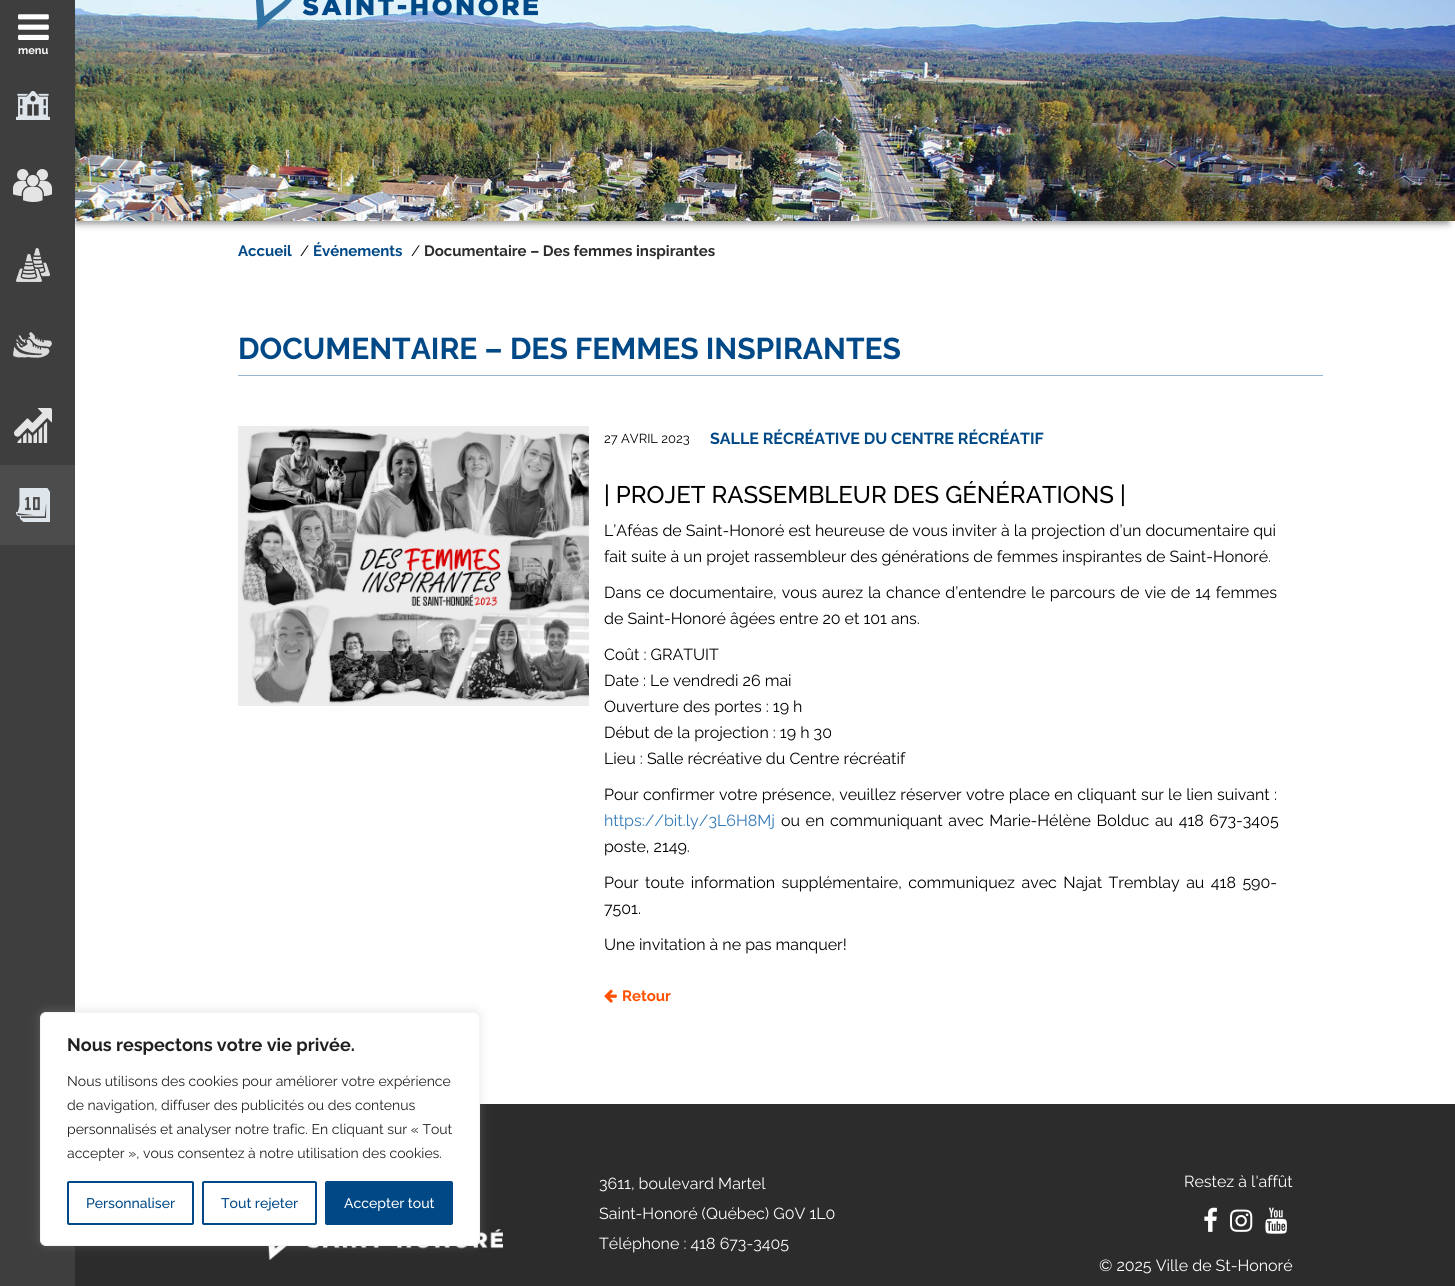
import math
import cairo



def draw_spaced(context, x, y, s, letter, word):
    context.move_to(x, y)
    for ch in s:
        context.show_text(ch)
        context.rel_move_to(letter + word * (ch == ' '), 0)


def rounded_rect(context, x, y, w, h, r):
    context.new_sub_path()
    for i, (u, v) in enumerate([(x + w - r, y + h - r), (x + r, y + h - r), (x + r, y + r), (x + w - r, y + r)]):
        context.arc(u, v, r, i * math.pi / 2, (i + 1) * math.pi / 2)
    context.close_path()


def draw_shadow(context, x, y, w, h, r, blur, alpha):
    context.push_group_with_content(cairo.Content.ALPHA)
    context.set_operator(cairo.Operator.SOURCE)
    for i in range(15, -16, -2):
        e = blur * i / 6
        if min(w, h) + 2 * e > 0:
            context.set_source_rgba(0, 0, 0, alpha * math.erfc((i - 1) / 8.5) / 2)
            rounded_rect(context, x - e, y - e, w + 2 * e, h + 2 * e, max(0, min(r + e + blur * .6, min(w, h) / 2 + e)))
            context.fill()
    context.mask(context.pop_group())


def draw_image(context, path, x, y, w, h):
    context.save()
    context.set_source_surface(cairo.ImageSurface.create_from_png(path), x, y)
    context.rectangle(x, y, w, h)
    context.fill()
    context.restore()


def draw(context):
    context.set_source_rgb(1, 1, 1)
    context.paint()
    context.set_source_rgb(0, 0, 0)
    draw_shadow(context, 76, -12, 1372, 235, 0, 4, 0.5)
    context.set_source_rgb(62 / 255, 62 / 255, 62 / 255)
    context.rectangle(0, 0, 75, 1286)
    context.fill()
    draw_image(context, "images/1.png", 18, 14, 31, 26)
    draw_image(context, "images/2.png", 16, 91, 34, 29)
    draw_image(context, "images/3.png", 13, 169, 39, 33)
    draw_image(context, "images/4.png", 16, 248, 34, 34)
    draw_image(context, "images/5.png", 13, 332, 39, 26)
    draw_image(context, "images/6.png", 14, 408, 38, 35)
    context.set_source_rgb(77 / 255, 76 / 255, 76 / 255)
    context.rectangle(0, 465, 75, 80)
    context.fill()
    draw_image(context, "images/7.png", 16, 488, 34, 34)
    draw_image(context, "images/8.png", 75, 0, 1380, 221)
    draw_image(context, "images/9.png", 255, 0, 283, 30)
    context.set_source_rgb(153 / 255, 182 / 255, 207 / 255)
    context.rectangle(238, 375, 1085, 1)
    context.fill()
    draw_image(context, "images/10.png", 238, 426, 351, 280)
    draw_image(context, "images/11.png", 604, 989, 13, 14)
    context.set_source_rgb(44 / 255, 44 / 255, 44 / 255)
    context.rectangle(75, 1104, 1380, 182)
    context.fill()
    draw_image(context, "images/12.png", 268, 1229, 235, 31)
    draw_image(context, "images/13.png", 1204, 1207, 13, 25)
    draw_image(context, "images/14.png", 1230, 1209, 23, 23)
    draw_image(context, "images/15.png", 1265, 1207, 22, 27)
    context.set_source_rgb(172 / 255, 171 / 255, 171 / 255)
    draw_shadow(context, 40, 1011, 440, 234, 6, 5, 0.3)
    context.set_source_rgb(1, 1, 1)
    rounded_rect(context, 40.5, 1012.5, 439, 233, 5.5)
    context.fill_preserve()
    context.set_source_rgb(244 / 255, 244 / 255, 244 / 255)
    context.set_line_width(1)
    context.stroke()
    rounded_rect(context, 68, 1182, 125, 42, 1)
    context.set_source_rgb(0, 72 / 255, 134 / 255)
    context.set_line_width(2)
    context.stroke()
    rounded_rect(context, 203, 1182, 113, 42, 1)
    context.stroke()
    rounded_rect(context, 326, 1182, 126, 42, 1)
    context.fill_preserve()
    context.stroke()
    context.select_font_face("Raleway", cairo.FontSlant.NORMAL, cairo.FontWeight.BOLD)
    context.set_font_size(11)
    context.set_source_rgb(1, 1, 1)
    context.move_to(18, 54)
    context.show_text("menu")
    context.set_font_size(15)
    context.set_source_rgb(0, 72 / 255, 134 / 255)
    context.move_to(238, 256)
    context.show_text("Accueil")
    context.select_font_face("Raleway")
    context.set_source_rgb(0, 0, 0)
    context.move_to(300, 256)
    context.show_text("/")
    context.select_font_face("Raleway", cairo.FontSlant.NORMAL, cairo.FontWeight.BOLD)
    context.set_source_rgb(0, 72 / 255, 134 / 255)
    context.move_to(313, 256)
    context.show_text("Événements")
    context.select_font_face("Raleway")
    context.set_source_rgb(0, 0, 0)
    context.move_to(411, 256)
    context.show_text("/")
    context.select_font_face("Raleway", cairo.FontSlant.NORMAL, cairo.FontWeight.BOLD)
    context.set_source_rgb(44 / 255, 44 / 255, 44 / 255)
    context.move_to(424, 256)
    context.show_text("Documentaire – Des femmes inspirantes")
    context.set_font_size(30)
    context.set_source_rgb(0, 72 / 255, 134 / 255)
    context.move_to(238, 359)
    context.show_text("DOCUMENTAIRE – DES FEMMES INSPIRANTES")
    context.select_font_face("Raleway")
    context.set_font_size(13)
    context.set_source_rgb(0, 0, 0)
    context.move_to(604, 443)
    context.show_text("27 AVRIL 2023")
    context.select_font_face("Raleway", cairo.FontSlant.NORMAL, cairo.FontWeight.BOLD)
    context.set_font_size(16)
    context.set_source_rgb(0, 72 / 255, 134 / 255)
    context.move_to(710, 444)
    context.show_text("SALLE RÉCRÉATIVE DU CENTRE RÉCRÉATIF")
    context.select_font_face("Raleway Medium")
    context.set_font_size(24)
    context.set_source_rgb(0, 0, 0)
    context.move_to(604, 503)
    context.show_text("| PROJET RASSEMBLEUR DES GÉNÉRATIONS |")
    context.select_font_face("Raleway")
    context.set_font_size(16)
    context.move_to(604, 536)
    context.show_text("L’Aféas de Saint-Honoré est heureuse de vous inviter à la projection d’un documentaire qui")
    context.move_to(604, 562)
    context.show_text("fait suite à un projet rassembleur des générations de femmes inspirantes de Saint-Honoré.")
    draw_spaced(context, 604, 598, "Dans ce documentaire, vous aurez la chance d’entendre le parcours de vie de 14 femmes", 0, 0.9)
    context.move_to(604, 624)
    context.show_text("de Saint-Honoré âgées entre 20 et 101 ans.")
    context.move_to(604, 660)
    context.show_text("Coût : GRATUIT")
    context.move_to(604, 686)
    context.show_text("Date : Le vendredi 26 mai")
    context.move_to(604, 712)
    context.show_text("Ouverture des portes : 19 h")
    context.move_to(604, 738)
    context.show_text("Début de la projection : 19 h 30")
    context.move_to(604, 764)
    context.show_text("Lieu : Salle récréative du Centre récréatif")
    draw_spaced(context, 604, 800, "Pour confirmer votre présence, veuillez réserver votre place en cliquant sur le lien suivant :", 0, 0.25)
    context.set_source_rgb(51 / 255, 122 / 255, 183 / 255)
    context.move_to(604, 826)
    context.show_text("https://bit.ly/3L6H8Mj")
    context.set_source_rgb(0, 0, 0)
    draw_spaced(context, 781, 826, "ou en communiquant avec Marie-Hélène Bolduc au 418 673-3405", 0, 1.5)
    context.move_to(604, 852)
    context.show_text("poste, 2149.")
    draw_spaced(context, 604, 888, "Pour toute information supplémentaire, communiquez avec Najat Tremblay au 418 590-", 0, 2.4)
    context.move_to(604, 914)
    context.show_text("7501.")
    context.move_to(604, 950)
    context.show_text("Une invitation à ne pas manquer!")
    context.select_font_face("Raleway", cairo.FontSlant.NORMAL, cairo.FontWeight.BOLD)
    context.set_font_size(15)
    context.set_source_rgb(1, 80 / 255, 0)
    context.move_to(622, 1001)
    context.show_text("Retour")
    context.select_font_face("Raleway")
    context.set_font_size(16)
    context.set_source_rgb(1, 1, 1)
    context.move_to(599, 1189)
    context.show_text("3611, boulevard Martel")
    context.move_to(599, 1219)
    context.show_text("Saint-Honoré (Québec) G0V 1L0")
    context.move_to(599, 1249)
    context.show_text("Téléphone : 418 673-3405")
    context.move_to(1184, 1187)
    context.show_text("Restez à l'affût")
    context.move_to(1099, 1271)
    context.show_text("© 2025 Ville de St-Honoré")
    context.select_font_face("Raleway", cairo.FontSlant.NORMAL, cairo.FontWeight.BOLD)
    context.set_font_size(18)
    context.set_source_rgb(33 / 255, 33 / 255, 33 / 255)
    context.move_to(67, 1051)
    context.show_text("Nous respectons votre vie privée.")
    context.select_font_face("Raleway")
    context.set_font_size(14)
    context.move_to(67, 1086)
    context.show_text("Nous utilisons des cookies pour améliorer votre expérience")
    context.move_to(67, 1110)
    context.show_text("de navigation, diffuser des publicités ou des contenus")
    context.move_to(67, 1134)
    context.show_text("personnalisés et analyser notre trafic. En cliquant sur « Tout")
    context.move_to(67, 1158)
    context.show_text("accepter », vous consentez à notre utilisation des cookies.")
    context.select_font_face("Raleway Medium")
    context.set_source_rgb(0, 72 / 255, 134 / 255)
    context.move_to(86, 1208)
    context.show_text("Personnaliser")
    context.move_to(221, 1208)
    context.show_text("Tout rejeter")
    context.set_source_rgb(1, 1, 1)
    context.move_to(344, 1208)
    context.show_text("Accepter tout")


surface = cairo.ImageSurface(cairo.Format.RGB24, 1455, 1286)
context = cairo.Context(surface)
options = cairo.FontOptions()
options.set_hint_metrics(cairo.HintMetrics.OFF)
options.set_hint_style(cairo.HintStyle.NONE)
context.set_font_options(options)
context.set_miter_limit(4)
draw(context)
surface.write_to_png("out.png")
